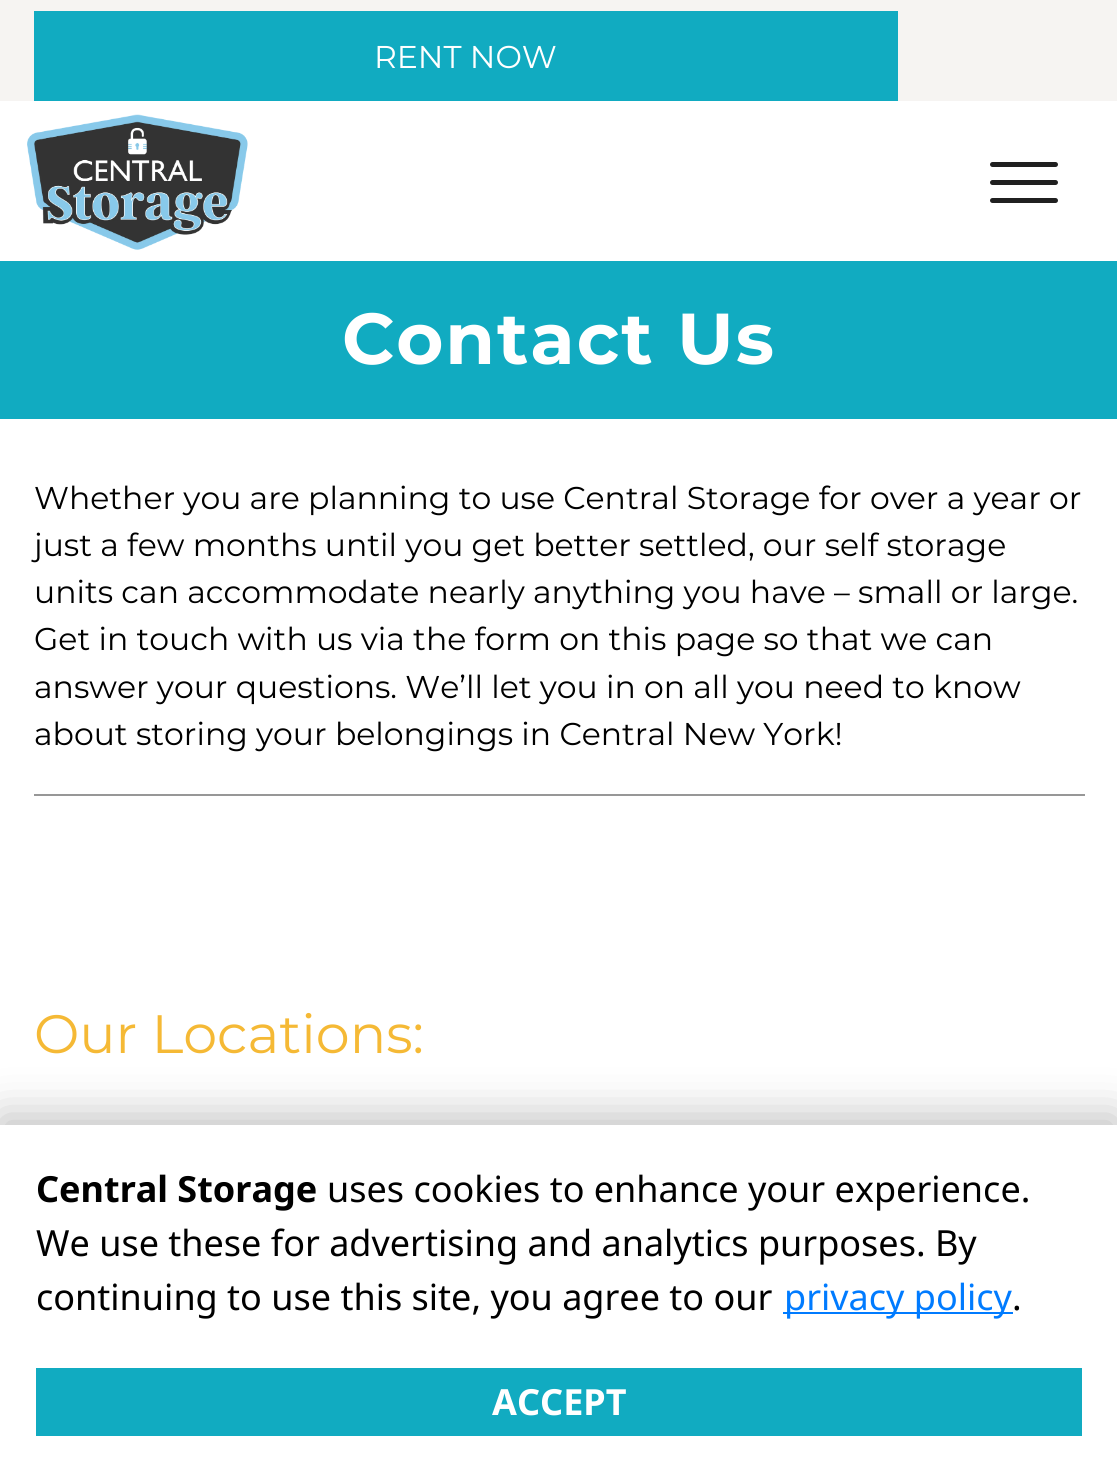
import math
import cairo



def draw_spaced(context, x, y, s, letter, word):
    context.move_to(x, y)
    for ch in s:
        context.show_text(ch)
        context.rel_move_to(letter + word * (ch == ' '), 0)


def rounded_rect(context, x, y, w, h, r):
    context.new_sub_path()
    for i, (u, v) in enumerate([(x + w - r, y + h - r), (x + r, y + h - r), (x + r, y + r), (x + w - r, y + r)]):
        context.arc(u, v, r, i * math.pi / 2, (i + 1) * math.pi / 2)
    context.close_path()


def draw_shadow(context, x, y, w, h, r, blur, alpha):
    context.push_group_with_content(cairo.Content.ALPHA)
    context.set_operator(cairo.Operator.SOURCE)
    for i in range(15, -16, -2):
        e = blur * i / 6
        if min(w, h) + 2 * e > 0:
            context.set_source_rgba(0, 0, 0, alpha * math.erfc((i - 1) / 8.5) / 2)
            rounded_rect(context, x - e, y - e, w + 2 * e, h + 2 * e, max(0, min(r + e + blur * .6, min(w, h) / 2 + e)))
            context.fill()
    context.mask(context.pop_group())


def draw_image(context, path, x, y, w, h):
    context.save()
    context.set_source_surface(cairo.ImageSurface.create_from_png(path), x, y)
    context.rectangle(x, y, w, h)
    context.fill()
    context.restore()


def draw(context):
    context.set_source_rgb(1, 1, 1)
    context.paint()
    context.set_source_rgb(246 / 255, 244 / 255, 242 / 255)
    context.rectangle(0, 0, 1117, 101)
    context.fill()
    context.set_source_rgb(17 / 255, 171 / 255, 193 / 255)
    context.rectangle(34, 11, 864, 90)
    context.fill()
    draw_image(context, "images/1.png", 27, 114, 221, 136)
    context.set_source_rgb(32 / 255, 32 / 255, 32 / 255)
    rounded_rect(context, 990, 162, 68, 5, 2.5)
    context.fill()
    rounded_rect(context, 990, 180, 68, 5, 2.5)
    context.fill()
    rounded_rect(context, 990, 198, 68, 5, 2.5)
    context.fill()
    context.set_source_rgb(17 / 255, 171 / 255, 193 / 255)
    context.rectangle(0, 261, 1117, 158)
    context.fill()
    context.set_source_rgb(151 / 255, 151 / 255, 151 / 255)
    context.rectangle(34, 794, 1051, 2)
    context.fill()
    context.set_source_rgb(0, 0, 0)
    draw_shadow(context, 0, 1116, 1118, 347, 0, 22.5, 0.25)
    context.set_source_rgb(1, 1, 1)
    context.rectangle(0, 1125, 1117, 346)
    context.fill()
    context.set_source_rgb(0, 123 / 255, 1)
    context.rectangle(783, 1312, 230, 2)
    context.fill()
    context.set_source_rgb(17 / 255, 171 / 255, 193 / 255)
    context.rectangle(36, 1368, 1046, 68)
    context.fill()
    context.select_font_face("Montserrat")
    context.set_font_size(31.5)
    context.set_source_rgb(1, 1, 1)
    context.move_to(374, 68)
    context.show_text("RENT NOW")
    context.select_font_face("Montserrat", cairo.FontSlant.NORMAL, cairo.FontWeight.BOLD)
    context.set_font_size(72)
    draw_spaced(context, 342, 364, "Contact Us", 2, 0)
    context.select_font_face("Montserrat")
    context.set_font_size(31.5)
    context.set_source_rgb(0, 0, 0)
    context.move_to(34, 509)
    context.show_text("Whether you are planning to use Central Storage for over a year or")
    context.move_to(34, 556)
    context.show_text("just a few months until you get better settled, our self storage")
    context.move_to(34, 603)
    context.show_text("units can accommodate nearly anything you have – small or large.")
    context.move_to(34, 650)
    context.show_text("Get in touch with us via the form on this page so that we can")
    context.move_to(34, 698)
    context.show_text("answer your questions. We’ll let you in on all you need to know")
    context.move_to(34, 745)
    context.show_text("about storing your belongings in Central New York!")
    context.set_font_size(54)
    context.set_source_rgb(245 / 255, 185 / 255, 53 / 255)
    context.move_to(34, 1053)
    context.show_text("Our Locations:")
    context.select_font_face("Noto Sans", cairo.FontSlant.NORMAL, cairo.FontWeight.BOLD)
    context.set_font_size(36)
    context.set_source_rgb(0, 0, 0)
    context.move_to(36, 1202)
    context.show_text("Central Storage")
    context.select_font_face("Noto Sans")
    context.move_to(327, 1202)
    context.show_text("uses cookies to enhance your experience.")
    context.move_to(36, 1256)
    context.show_text("We use these for advertising and analytics purposes. By")
    context.move_to(36, 1310)
    context.show_text("continuing to use this site, you agree to our")
    context.set_source_rgb(0, 123 / 255, 1)
    context.move_to(784, 1310)
    context.show_text("privacy policy")
    context.set_source_rgb(0, 0, 0)
    context.move_to(1012, 1310)
    context.show_text(".")
    context.select_font_face("Noto Sans", cairo.FontSlant.NORMAL, cairo.FontWeight.BOLD)
    context.set_source_rgb(1, 1, 1)
    context.move_to(492, 1415)
    context.show_text("ACCEPT")


surface = cairo.ImageSurface(cairo.Format.RGB24, 1117, 1471)
context = cairo.Context(surface)
options = cairo.FontOptions()
options.set_hint_metrics(cairo.HintMetrics.OFF)
options.set_hint_style(cairo.HintStyle.NONE)
context.set_font_options(options)
context.set_miter_limit(4)
draw(context)
surface.write_to_png("out.png")
